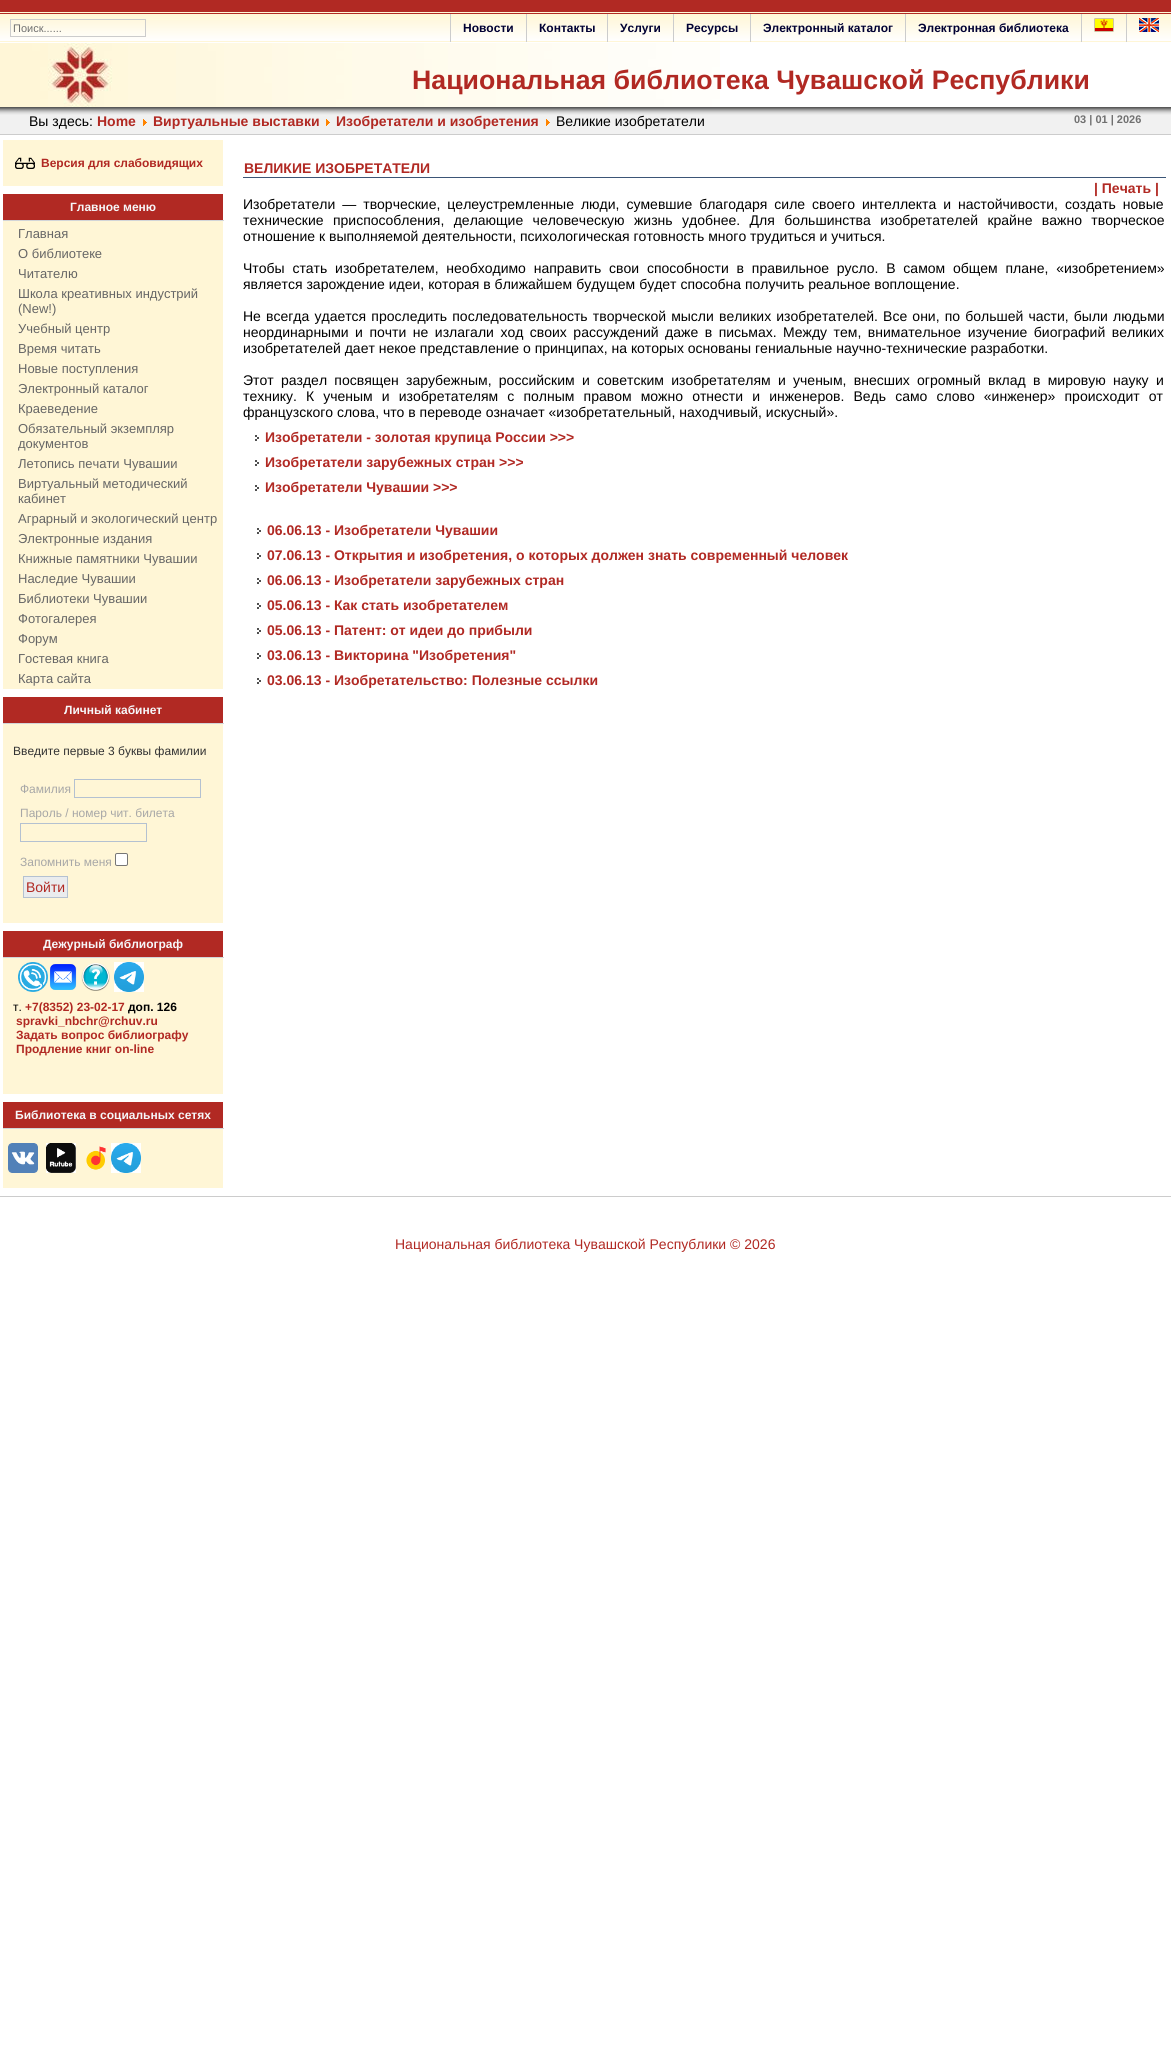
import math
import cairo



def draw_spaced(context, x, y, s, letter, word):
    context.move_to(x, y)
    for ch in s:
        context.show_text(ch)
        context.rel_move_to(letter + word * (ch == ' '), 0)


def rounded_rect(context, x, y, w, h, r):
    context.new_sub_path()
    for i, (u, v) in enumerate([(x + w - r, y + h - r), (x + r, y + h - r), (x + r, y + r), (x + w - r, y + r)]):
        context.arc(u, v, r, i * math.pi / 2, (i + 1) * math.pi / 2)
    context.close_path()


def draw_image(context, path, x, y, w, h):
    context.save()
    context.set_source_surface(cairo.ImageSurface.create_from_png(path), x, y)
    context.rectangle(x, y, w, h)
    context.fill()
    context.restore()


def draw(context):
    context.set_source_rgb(1, 1, 1)
    context.paint()
    draw_image(context, "images/1.png", 0, 0, 1171, 42)
    context.rectangle(10.5, 19.5, 135, 17)
    context.set_source_rgb(204 / 255, 204 / 255, 204 / 255)
    context.set_line_width(1)
    context.stroke()
    context.rectangle(450, 14, 1, 28)
    context.fill()
    context.rectangle(526, 14, 1, 28)
    context.fill()
    context.rectangle(607, 14, 1, 28)
    context.fill()
    context.rectangle(673, 14, 1, 28)
    context.fill()
    context.rectangle(750, 14, 1, 28)
    context.fill()
    context.rectangle(905, 14, 1, 28)
    context.fill()
    context.rectangle(1081, 14, 1, 28)
    context.fill()
    draw_image(context, "images/2.png", 1094, 18, 20, 14)
    context.rectangle(1126, 14, 1, 28)
    context.fill()
    draw_image(context, "images/3.png", 1139, 18, 20, 14)
    draw_image(context, "images/4.png", 0, 43, 720, 64)
    draw_image(context, "images/5.png", 0, 107, 1171, 28)
    draw_image(context, "images/6.png", 143, 119, 4, 7)
    draw_image(context, "images/6.png", 326, 119, 4, 7)
    draw_image(context, "images/6.png", 546, 119, 4, 7)
    context.set_source_rgb(1, 246 / 255, 214 / 255)
    context.rectangle(3, 140, 220, 46)
    context.fill()
    draw_image(context, "images/7.png", 15, 157, 20, 12)
    context.rectangle(3, 221, 220, 468)
    context.fill()
    context.set_source_rgb(177 / 255, 41 / 255, 35 / 255)
    context.rectangle(3, 194, 220, 26)
    context.fill()
    context.set_source_rgb(210 / 255, 213 / 255, 216 / 255)
    context.rectangle(3, 220, 221, 1)
    context.fill()
    context.set_source_rgb(1, 246 / 255, 214 / 255)
    context.rectangle(3, 724, 220, 199)
    context.fill()
    context.set_source_rgb(177 / 255, 41 / 255, 35 / 255)
    context.rectangle(3, 697, 220, 26)
    context.fill()
    context.set_source_rgb(210 / 255, 213 / 255, 216 / 255)
    context.rectangle(3, 723, 221, 1)
    context.fill()
    context.rectangle(74.5, 779.5, 126, 18)
    context.set_source_rgb(180 / 255, 193 / 255, 209 / 255)
    context.stroke()
    context.rectangle(20.5, 823.5, 126, 18)
    context.stroke()
    context.set_source_rgb(1, 1, 1)
    rounded_rect(context, 115.5, 853.5, 12, 12, 1.5)
    context.fill_preserve()
    context.set_source_rgb(118 / 255, 118 / 255, 118 / 255)
    context.stroke()
    context.set_source_rgb(234 / 255, 236 / 255, 238 / 255)
    context.rectangle(23.5, 876.5, 44, 21)
    context.fill_preserve()
    context.set_source_rgb(180 / 255, 193 / 255, 209 / 255)
    context.stroke()
    context.set_source_rgb(1, 246 / 255, 214 / 255)
    context.rectangle(3, 958, 220, 136)
    context.fill()
    context.set_source_rgb(177 / 255, 41 / 255, 35 / 255)
    context.rectangle(3, 931, 220, 26)
    context.fill()
    context.set_source_rgb(210 / 255, 213 / 255, 216 / 255)
    context.rectangle(3, 957, 221, 1)
    context.fill()
    draw_image(context, "images/8.png", 18, 962, 30, 30)
    draw_image(context, "images/9.png", 50, 964, 27, 26)
    draw_image(context, "images/10.png", 81, 963, 29, 28)
    draw_image(context, "images/11.png", 114, 962, 30, 30)
    context.set_source_rgb(1, 246 / 255, 214 / 255)
    context.rectangle(3, 1129, 220, 59)
    context.fill()
    context.set_source_rgb(177 / 255, 41 / 255, 35 / 255)
    context.rectangle(3, 1102, 220, 26)
    context.fill()
    context.set_source_rgb(210 / 255, 213 / 255, 216 / 255)
    context.rectangle(3, 1128, 221, 1)
    context.fill()
    draw_image(context, "images/12.png", 8, 1143, 30, 30)
    draw_image(context, "images/13.png", 46, 1143, 30, 30)
    draw_image(context, "images/14.png", 86, 1146, 20, 24)
    draw_image(context, "images/11.png", 111, 1143, 30, 30)
    context.set_source_rgb(59 / 255, 85 / 255, 118 / 255)
    context.rectangle(243, 177, 923, 1)
    context.fill()
    draw_image(context, "images/15.png", 255, 435, 4, 6)
    draw_image(context, "images/15.png", 255, 460, 4, 6)
    draw_image(context, "images/15.png", 255, 485, 4, 6)
    draw_image(context, "images/15.png", 257, 528, 4, 6)
    draw_image(context, "images/15.png", 257, 553, 4, 6)
    draw_image(context, "images/15.png", 257, 578, 4, 6)
    draw_image(context, "images/15.png", 257, 603, 4, 6)
    draw_image(context, "images/15.png", 257, 628, 4, 6)
    draw_image(context, "images/15.png", 257, 653, 4, 6)
    draw_image(context, "images/15.png", 257, 678, 4, 6)
    context.set_source_rgb(204 / 255, 204 / 255, 204 / 255)
    context.rectangle(0, 1196, 1171, 1)
    context.fill()
    context.select_font_face("Liberation Sans")
    context.set_font_size(11)
    context.set_source_rgb(112 / 255, 112 / 255, 112 / 255)
    context.move_to(13, 32)
    context.show_text("Поиск......")
    context.select_font_face("Liberation Sans", cairo.FontSlant.NORMAL, cairo.FontWeight.BOLD)
    context.set_font_size(12)
    context.set_source_rgb(0, 0, 51 / 255)
    context.move_to(463, 32)
    context.show_text("Новости")
    context.move_to(539, 32)
    context.show_text("Контакты")
    context.move_to(620, 32)
    context.show_text("Услуги")
    context.move_to(686, 32)
    context.show_text("Ресурсы")
    context.move_to(763, 32)
    context.show_text("Электронный каталог")
    context.move_to(918, 32)
    context.show_text("Электронная библиотека")
    context.set_font_size(26.7)
    context.set_source_rgb(177 / 255, 41 / 255, 35 / 255)
    context.move_to(412, 89)
    context.show_text("Национальная библиотека Чувашской Республики")
    context.select_font_face("Liberation Sans")
    context.set_font_size(14)
    context.set_source_rgb(0, 0, 0)
    context.move_to(29, 126)
    context.show_text("Вы здесь:")
    context.select_font_face("Liberation Sans", cairo.FontSlant.NORMAL, cairo.FontWeight.BOLD)
    context.set_source_rgb(177 / 255, 41 / 255, 35 / 255)
    context.move_to(97, 126)
    context.show_text("Home")
    context.move_to(153, 126)
    context.show_text("Виртуальные выставки")
    context.move_to(336, 126)
    context.show_text("Изобретатели и изобретения")
    context.select_font_face("Liberation Sans")
    context.set_source_rgb(0, 0, 0)
    context.move_to(556, 126)
    context.show_text("Великие изобретатели")
    context.select_font_face("Liberation Sans", cairo.FontSlant.NORMAL, cairo.FontWeight.BOLD)
    context.set_font_size(11)
    context.set_source_rgb(112 / 255, 112 / 255, 112 / 255)
    context.move_to(1074, 123)
    context.show_text("03 | 01 | 2026")
    context.set_font_size(12)
    context.set_source_rgb(177 / 255, 41 / 255, 35 / 255)
    context.move_to(41, 167)
    context.show_text("Версия для слабовидящих")
    context.set_source_rgb(246 / 255, 247 / 255, 249 / 255)
    context.move_to(70, 211)
    context.show_text("Главное меню")
    context.select_font_face("Liberation Sans")
    context.set_font_size(13)
    context.set_source_rgb(102 / 255, 102 / 255, 102 / 255)
    context.move_to(18, 238)
    context.show_text("Главная")
    context.move_to(18, 258)
    context.show_text("О библиотеке")
    context.move_to(18, 278)
    context.show_text("Читателю")
    context.move_to(18, 298)
    context.show_text("Школа креативных индустрий")
    context.move_to(18, 313)
    context.show_text("(New!)")
    context.move_to(18, 333)
    context.show_text("Учебный центр")
    context.move_to(18, 353)
    context.show_text("Время читать")
    context.move_to(18, 373)
    context.show_text("Новые поступления")
    context.move_to(18, 393)
    context.show_text("Электронный каталог")
    context.move_to(18, 413)
    context.show_text("Краеведение")
    context.move_to(18, 433)
    context.show_text("Обязательный экземпляр")
    context.move_to(18, 448)
    context.show_text("документов")
    context.move_to(18, 468)
    context.show_text("Летопись печати Чувашии")
    context.move_to(18, 488)
    context.show_text("Виртуальный методический")
    context.move_to(18, 503)
    context.show_text("кабинет")
    context.move_to(18, 523)
    context.show_text("Аграрный и экологический центр")
    context.move_to(18, 543)
    context.show_text("Электронные издания")
    context.move_to(18, 563)
    context.show_text("Книжные памятники Чувашии")
    context.move_to(18, 583)
    context.show_text("Наследие Чувашии")
    context.move_to(18, 603)
    context.show_text("Библиотеки Чувашии")
    context.move_to(18, 623)
    context.show_text("Фотогалерея")
    context.move_to(18, 643)
    context.show_text("Форум")
    context.move_to(18, 663)
    context.show_text("Гостевая книга")
    context.move_to(18, 683)
    context.show_text("Карта сайта")
    context.select_font_face("Liberation Sans", cairo.FontSlant.NORMAL, cairo.FontWeight.BOLD)
    context.set_font_size(12)
    context.set_source_rgb(246 / 255, 247 / 255, 249 / 255)
    context.move_to(64, 714)
    context.show_text("Личный кабинет")
    context.select_font_face("Liberation Sans")
    context.set_source_rgb(51 / 255, 51 / 255, 51 / 255)
    context.move_to(13, 755)
    context.show_text("Введите первые 3 буквы фамилии")
    context.set_source_rgb(167 / 255, 167 / 255, 167 / 255)
    context.move_to(20, 793)
    context.show_text("Фамилия")
    context.move_to(20, 817)
    context.show_text("Пароль / номер чит. билета")
    context.move_to(20, 866)
    context.show_text("Запомнить меня")
    context.set_font_size(14)
    context.set_source_rgb(177 / 255, 41 / 255, 35 / 255)
    context.move_to(26, 892)
    context.show_text("Войти")
    context.select_font_face("Liberation Sans", cairo.FontSlant.NORMAL, cairo.FontWeight.BOLD)
    context.set_font_size(12)
    context.set_source_rgb(246 / 255, 247 / 255, 249 / 255)
    context.move_to(43, 948)
    context.show_text("Дежурный библиограф")
    context.select_font_face("Liberation Sans")
    context.set_source_rgb(0, 0, 0)
    context.move_to(13, 1011)
    context.show_text("т.")
    context.select_font_face("Liberation Sans", cairo.FontSlant.NORMAL, cairo.FontWeight.BOLD)
    context.set_source_rgb(177 / 255, 41 / 255, 35 / 255)
    context.move_to(25, 1011)
    context.show_text("+7(8352) 23-02-17")
    context.set_source_rgb(0, 0, 0)
    context.move_to(128, 1011)
    context.show_text("доп. 126")
    context.set_source_rgb(177 / 255, 41 / 255, 35 / 255)
    context.move_to(16, 1025)
    context.show_text("spravki_nbchr@rchuv.ru")
    context.move_to(16, 1039)
    context.show_text("Задать вопрос библиографу")
    context.move_to(16, 1053)
    context.show_text("Продление книг on-line")
    context.set_source_rgb(246 / 255, 247 / 255, 249 / 255)
    context.move_to(15, 1119)
    context.show_text("Библиотека в социальных сетях")
    context.set_font_size(14)
    context.set_source_rgb(177 / 255, 41 / 255, 35 / 255)
    context.move_to(244, 173)
    context.show_text("ВЕЛИКИЕ ИЗОБРЕТАТЕЛИ")
    context.move_to(1094, 193)
    context.show_text("| Печать |")
    context.select_font_face("Liberation Sans")
    context.set_source_rgb(0, 0, 0)
    draw_spaced(context, 243, 209, "Изобретатели — творческие, целеустремленные люди, сумевшие благодаря силе своего интеллекта и настойчивости, создать новые", 0, 3.1)
    draw_spaced(context, 243, 225, "технические приспособления, делающие человеческую жизнь удобнее. Для большинства изобретателей крайне важно творческое", 0, 5.5)
    context.move_to(243, 241)
    context.show_text("отношение к выполняемой деятельности, психологическая готовность много трудиться и учиться.")
    draw_spaced(context, 243, 273, "Чтобы стать изобретателем, необходимо направить свои способности в правильное русло. В самом общем плане, «изобретением»", 0, 3.9)
    context.move_to(243, 289)
    context.show_text("является зарождение идеи, которая в ближайшем будущем будет способна получить реальное воплощение.")
    draw_spaced(context, 243, 321, "Не всегда удается проследить последовательность творческой мысли великих изобретателей. Все они, по большей части, были людьми", 0, 1.25)
    draw_spaced(context, 243, 337, "неординарными и почти не излагали ход своих рассуждений даже в письмах. Между тем, внимательное изучение биографий великих", 0, 2.6)
    context.move_to(243, 353)
    context.show_text("изобретателей дает некое представление о принципах, на которых основаны гениальные научно-технические разработки.")
    draw_spaced(context, 243, 385, "Этот раздел посвящен зарубежным, российским и советским изобретателям и ученым, внесших огромный вклад в мировую науку и", 0, 3.4)
    draw_spaced(context, 243, 401, "технику. К ученым и изобретателям с полным правом можно отнести и инженеров. Ведь само слово «инженер» происходит от", 0, 5.25)
    context.move_to(243, 417)
    context.show_text("французского слова, что в переводе означает «изобретательный, находчивый, искусный».")
    context.select_font_face("Liberation Sans", cairo.FontSlant.NORMAL, cairo.FontWeight.BOLD)
    context.set_source_rgb(177 / 255, 41 / 255, 35 / 255)
    context.move_to(265, 442)
    context.show_text("Изобретатели - золотая крупица России >>>")
    context.move_to(265, 467)
    context.show_text("Изобретатели зарубежных стран >>>")
    context.move_to(265, 492)
    context.show_text("Изобретатели Чувашии >>>")
    context.move_to(267, 535)
    context.show_text("06.06.13 - Изобретатели Чувашии")
    context.move_to(267, 560)
    context.show_text("07.06.13 - Открытия и изобретения, о которых должен знать современный человек")
    context.move_to(267, 585)
    context.show_text("06.06.13 - Изобретатели зарубежных стран")
    context.move_to(267, 610)
    context.show_text("05.06.13 - Как стать изобретателем")
    context.move_to(267, 635)
    context.show_text("05.06.13 - Патент: от идеи до прибыли")
    context.move_to(267, 660)
    context.show_text("03.06.13 - Викторина \"Изобретения\"")
    context.move_to(267, 685)
    context.show_text("03.06.13 - Изобретательство: Полезные ссылки")
    context.select_font_face("Liberation Sans")
    context.move_to(395, 1249)
    context.show_text("Национальная библиотека Чувашской Республики © 2026")


surface = cairo.ImageSurface(cairo.Format.RGB24, 1171, 2069)
context = cairo.Context(surface)
options = cairo.FontOptions()
options.set_hint_metrics(cairo.HintMetrics.OFF)
options.set_hint_style(cairo.HintStyle.NONE)
context.set_font_options(options)
context.set_miter_limit(4)
draw(context)
surface.write_to_png("out.png")
